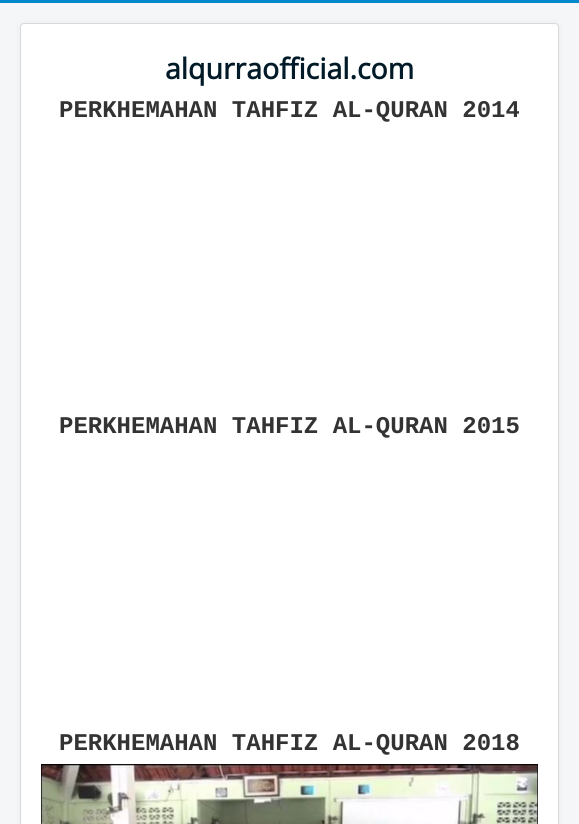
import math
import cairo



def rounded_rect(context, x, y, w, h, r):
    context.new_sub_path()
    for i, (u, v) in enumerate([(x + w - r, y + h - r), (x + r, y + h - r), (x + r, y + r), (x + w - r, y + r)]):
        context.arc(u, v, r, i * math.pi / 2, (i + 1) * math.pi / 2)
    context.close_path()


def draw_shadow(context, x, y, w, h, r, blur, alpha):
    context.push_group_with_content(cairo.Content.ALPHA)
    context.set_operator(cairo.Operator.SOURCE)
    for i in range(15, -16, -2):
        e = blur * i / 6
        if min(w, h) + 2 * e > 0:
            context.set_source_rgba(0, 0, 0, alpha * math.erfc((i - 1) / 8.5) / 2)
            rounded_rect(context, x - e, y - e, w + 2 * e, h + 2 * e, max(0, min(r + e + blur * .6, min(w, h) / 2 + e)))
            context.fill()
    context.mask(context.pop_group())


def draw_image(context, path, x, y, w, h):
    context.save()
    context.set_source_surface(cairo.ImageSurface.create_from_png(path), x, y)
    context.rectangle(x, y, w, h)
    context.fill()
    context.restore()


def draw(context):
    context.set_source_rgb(244 / 255, 246 / 255, 247 / 255)
    context.paint()
    context.set_source_rgb(0, 136 / 255, 204 / 255)
    context.rectangle(0, 0, 579, 3)
    context.fill()
    context.set_source_rgb(0, 0, 0)
    draw_shadow(context, 20, 23, 539, 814, 4, 3, 0.05)
    context.set_source_rgb(1, 1, 1)
    rounded_rect(context, 20, 23, 539, 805, 4)
    context.fill()
    rounded_rect(context, 20.5, 23.5, 538, 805, 3.5)
    context.set_source_rgba(0, 0, 0, 0.15)
    context.set_line_width(1)
    context.stroke()
    draw_image(context, "images/1.png", 41, 764, 497, 60)
    context.select_font_face("Open Sans", cairo.FontSlant.NORMAL, cairo.FontWeight.BOLD)
    context.set_font_size(28.5)
    context.set_source_rgb(0, 26 / 255, 39 / 255)
    context.move_to(165, 79)
    context.show_text("alqurraofficial.com")
    context.select_font_face("Liberation Mono", cairo.FontSlant.NORMAL, cairo.FontWeight.BOLD)
    context.set_font_size(24)
    context.set_source_rgb(51 / 255, 51 / 255, 51 / 255)
    context.move_to(59, 117)
    context.show_text("PERKHEMAHAN TAHFIZ AL-QURAN 2014")
    context.move_to(59, 433)
    context.show_text("PERKHEMAHAN TAHFIZ AL-QURAN 2015")
    context.move_to(59, 750)
    context.show_text("PERKHEMAHAN TAHFIZ AL-QURAN 2018")


surface = cairo.ImageSurface(cairo.Format.RGB24, 579, 824)
context = cairo.Context(surface)
options = cairo.FontOptions()
options.set_hint_metrics(cairo.HintMetrics.OFF)
options.set_hint_style(cairo.HintStyle.NONE)
context.set_font_options(options)
context.set_miter_limit(4)
draw(context)
surface.write_to_png("out.png")
